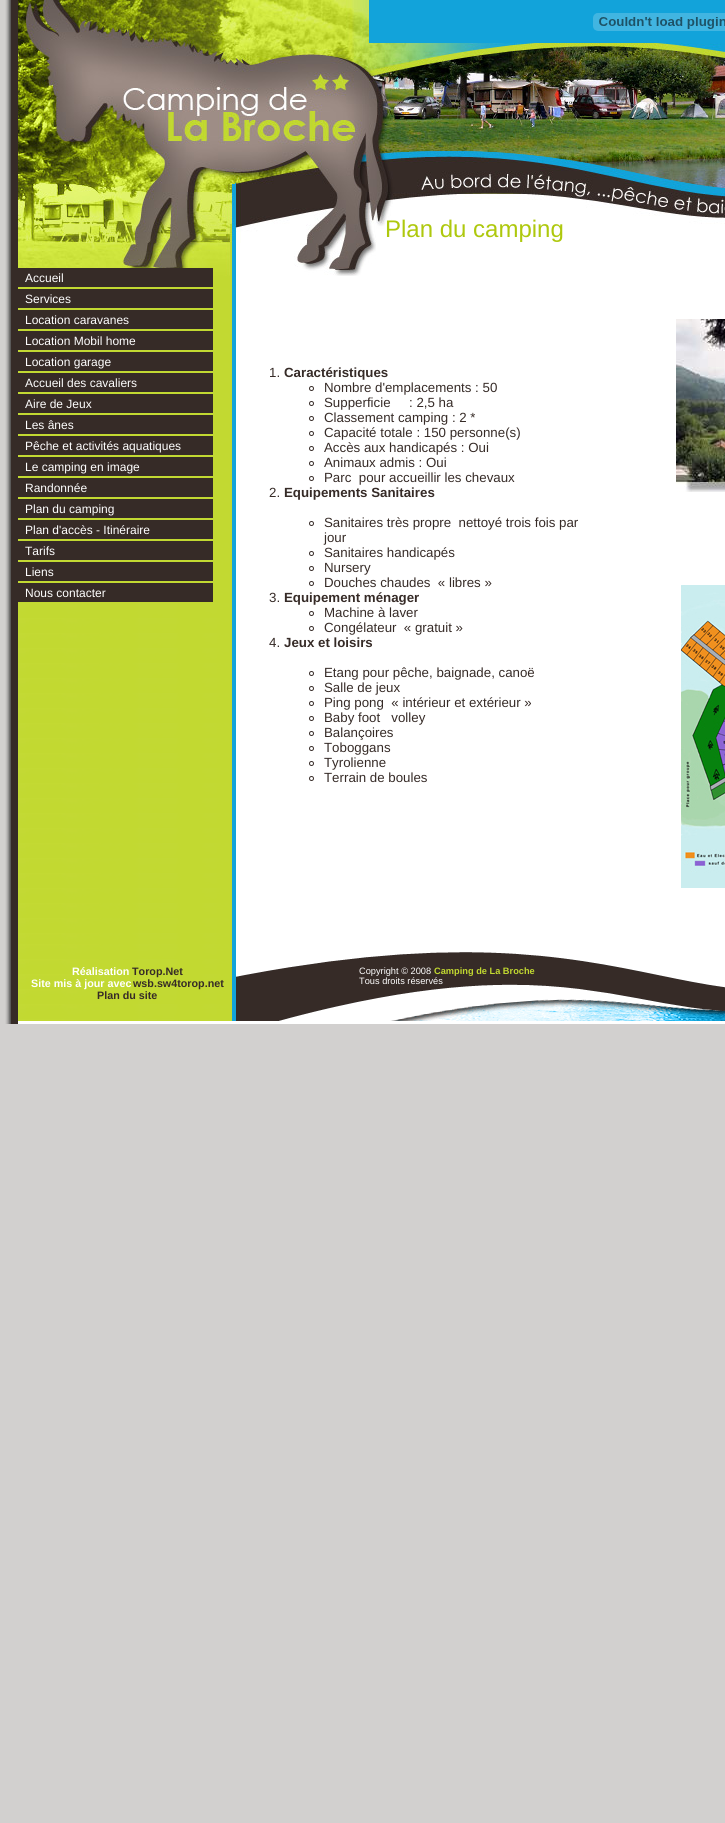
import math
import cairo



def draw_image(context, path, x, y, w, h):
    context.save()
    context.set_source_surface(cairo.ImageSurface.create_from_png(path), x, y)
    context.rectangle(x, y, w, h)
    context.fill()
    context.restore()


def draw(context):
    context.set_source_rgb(210 / 255, 208 / 255, 207 / 255)
    context.paint()
    draw_image(context, "images/1.png", 5, 0, 6, 1024)
    context.set_source_rgb(54 / 255, 43 / 255, 39 / 255)
    context.rectangle(11, 0, 7, 1024)
    context.fill()
    context.set_source_rgb(1, 1, 1)
    context.rectangle(18, 1021, 707, 3)
    context.fill()
    draw_image(context, "images/2.png", 18, 0, 351, 243)
    context.set_source_rgb(18 / 255, 163 / 255, 218 / 255)
    context.rectangle(369, 0, 356, 43)
    context.fill()
    draw_image(context, "images/3.png", 593, 13, 132, 18)
    draw_image(context, "images/4.png", 369, 43, 356, 149)
    draw_image(context, "images/5.png", 369, 192, 356, 51)
    context.set_source_rgb(1, 1, 1)
    context.rectangle(236, 243, 489, 709)
    context.fill()
    draw_image(context, "images/6.png", 18, 243, 218, 701)
    draw_image(context, "images/7.png", 18, 243, 212, 33)
    draw_image(context, "images/8.png", 294, 243, 82, 33)
    context.arc(311.5, 388.5, 2, 0, 2 * math.pi)
    context.set_source_rgb(54 / 255, 43 / 255, 39 / 255)
    context.set_line_width(1)
    context.stroke()
    context.arc(311.5, 403.5, 2, 0, 2 * math.pi)
    context.stroke()
    context.arc(311.5, 418.5, 2, 0, 2 * math.pi)
    context.stroke()
    context.arc(311.5, 433.5, 2, 0, 2 * math.pi)
    context.stroke()
    context.arc(311.5, 448.5, 2, 0, 2 * math.pi)
    context.stroke()
    context.arc(311.5, 463.5, 2, 0, 2 * math.pi)
    context.stroke()
    context.arc(311.5, 478.5, 2, 0, 2 * math.pi)
    context.stroke()
    context.arc(311.5, 523.5, 2, 0, 2 * math.pi)
    context.stroke()
    context.arc(311.5, 553.5, 2, 0, 2 * math.pi)
    context.stroke()
    context.arc(311.5, 568.5, 2, 0, 2 * math.pi)
    context.stroke()
    context.arc(311.5, 583.5, 2, 0, 2 * math.pi)
    context.stroke()
    context.arc(311.5, 613.5, 2, 0, 2 * math.pi)
    context.stroke()
    context.arc(311.5, 628.5, 2, 0, 2 * math.pi)
    context.stroke()
    context.arc(311.5, 673.5, 2, 0, 2 * math.pi)
    context.stroke()
    context.arc(311.5, 688.5, 2, 0, 2 * math.pi)
    context.stroke()
    context.arc(311.5, 703.5, 2, 0, 2 * math.pi)
    context.stroke()
    context.arc(311.5, 718.5, 2, 0, 2 * math.pi)
    context.stroke()
    context.arc(311.5, 733.5, 2, 0, 2 * math.pi)
    context.stroke()
    context.arc(311.5, 748.5, 2, 0, 2 * math.pi)
    context.stroke()
    context.arc(311.5, 763.5, 2, 0, 2 * math.pi)
    context.stroke()
    context.arc(311.5, 778.5, 2, 0, 2 * math.pi)
    context.stroke()
    draw_image(context, "images/9.png", 676, 319, 49, 173)
    draw_image(context, "images/10.png", 681, 585, 44, 303)
    draw_image(context, "images/11.png", 18, 944, 218, 77)
    draw_image(context, "images/12.png", 236, 952, 489, 69)
    context.rectangle(18, 268, 195, 19)
    context.fill()
    context.rectangle(18, 289, 195, 19)
    context.fill()
    context.rectangle(18, 310, 195, 19)
    context.fill()
    context.rectangle(18, 331, 195, 19)
    context.fill()
    context.rectangle(18, 352, 195, 19)
    context.fill()
    context.rectangle(18, 373, 195, 19)
    context.fill()
    context.rectangle(18, 394, 195, 19)
    context.fill()
    context.rectangle(18, 415, 195, 19)
    context.fill()
    context.rectangle(18, 436, 195, 19)
    context.fill()
    context.rectangle(18, 457, 195, 19)
    context.fill()
    context.rectangle(18, 478, 195, 19)
    context.fill()
    context.rectangle(18, 499, 195, 19)
    context.fill()
    context.rectangle(18, 520, 195, 19)
    context.fill()
    context.rectangle(18, 541, 195, 19)
    context.fill()
    context.rectangle(18, 562, 195, 19)
    context.fill()
    context.rectangle(18, 583, 195, 19)
    context.fill()
    context.select_font_face("Liberation Sans")
    context.set_font_size(24)
    context.set_source_rgb(174 / 255, 200 / 255, 13 / 255)
    context.move_to(385, 237)
    context.show_text("Plan du camping")
    context.set_font_size(13.3)
    context.set_source_rgb(54 / 255, 43 / 255, 39 / 255)
    context.move_to(269, 377)
    context.show_text("1.")
    context.select_font_face("Liberation Sans", cairo.FontSlant.NORMAL, cairo.FontWeight.BOLD)
    context.move_to(284, 377)
    context.show_text("Caractéristiques")
    context.select_font_face("Liberation Sans")
    context.move_to(324, 392)
    context.show_text("Nombre d'emplacements : 50")
    context.move_to(324, 407)
    context.show_text("Supperficie     : 2,5 ha")
    context.move_to(324, 422)
    context.show_text("Classement camping : 2 *")
    context.move_to(324, 437)
    context.show_text("Capacité totale : 150 personne(s)")
    context.move_to(324, 452)
    context.show_text("Accès aux handicapés : Oui")
    context.move_to(324, 467)
    context.show_text("Animaux admis : Oui")
    context.move_to(324, 482)
    context.show_text("Parc  pour accueillir les chevaux")
    context.move_to(269, 497)
    context.show_text("2.")
    context.select_font_face("Liberation Sans", cairo.FontSlant.NORMAL, cairo.FontWeight.BOLD)
    context.move_to(284, 497)
    context.show_text("Equipements Sanitaires")
    context.select_font_face("Liberation Sans")
    context.move_to(324, 527)
    context.show_text("Sanitaires très propre  nettoyé trois fois par")
    context.move_to(324, 542)
    context.show_text("jour")
    context.move_to(324, 557)
    context.show_text("Sanitaires handicapés")
    context.move_to(324, 572)
    context.show_text("Nursery")
    context.move_to(324, 587)
    context.show_text("Douches chaudes  « libres »")
    context.move_to(269, 602)
    context.show_text("3.")
    context.select_font_face("Liberation Sans", cairo.FontSlant.NORMAL, cairo.FontWeight.BOLD)
    context.move_to(284, 602)
    context.show_text("Equipement ménager")
    context.select_font_face("Liberation Sans")
    context.move_to(324, 617)
    context.show_text("Machine à laver")
    context.move_to(324, 632)
    context.show_text("Congélateur  « gratuit »")
    context.move_to(269, 647)
    context.show_text("4.")
    context.select_font_face("Liberation Sans", cairo.FontSlant.NORMAL, cairo.FontWeight.BOLD)
    context.move_to(284, 647)
    context.show_text("Jeux et loisirs")
    context.select_font_face("Liberation Sans")
    context.move_to(324, 677)
    context.show_text("Etang pour pêche, baignade, canoë")
    context.move_to(324, 692)
    context.show_text("Salle de jeux")
    context.move_to(324, 707)
    context.show_text("Ping pong  « intérieur et extérieur »")
    context.move_to(324, 722)
    context.show_text("Baby foot   volley")
    context.move_to(324, 737)
    context.show_text("Balançoires")
    context.move_to(324, 752)
    context.show_text("Toboggans")
    context.move_to(324, 767)
    context.show_text("Tyrolienne")
    context.move_to(324, 782)
    context.show_text("Terrain de boules")
    context.select_font_face("Liberation Sans", cairo.FontSlant.NORMAL, cairo.FontWeight.BOLD)
    context.set_font_size(10.75)
    context.set_source_rgb(1, 1, 1)
    context.move_to(72, 975)
    context.show_text("Réalisation")
    context.set_source_rgb(54 / 255, 43 / 255, 39 / 255)
    context.move_to(132, 975)
    context.show_text("Torop.Net")
    context.set_source_rgb(1, 1, 1)
    context.move_to(31, 987)
    context.show_text("Site mis à jour avec")
    context.set_source_rgb(54 / 255, 43 / 255, 39 / 255)
    context.move_to(133, 987)
    context.show_text("wsb.sw4torop.net")
    context.move_to(97, 999)
    context.show_text("Plan du site")
    context.select_font_face("Liberation Sans")
    context.set_font_size(9.25)
    context.set_source_rgb(1, 1, 1)
    context.move_to(359, 974)
    context.show_text("Copyright © 2008")
    context.select_font_face("Liberation Sans", cairo.FontSlant.NORMAL, cairo.FontWeight.BOLD)
    context.set_source_rgb(193 / 255, 216 / 255, 48 / 255)
    context.move_to(434, 974)
    context.show_text("Camping de La Broche")
    context.select_font_face("Liberation Sans")
    context.set_source_rgb(1, 1, 1)
    context.move_to(359, 984)
    context.show_text("Tous droits réservés")
    context.set_font_size(12)
    context.move_to(25, 282)
    context.show_text("Accueil")
    context.move_to(25, 303)
    context.show_text("Services")
    context.move_to(25, 324)
    context.show_text("Location caravanes")
    context.move_to(25, 345)
    context.show_text("Location Mobil home")
    context.move_to(25, 366)
    context.show_text("Location garage")
    context.move_to(25, 387)
    context.show_text("Accueil des cavaliers")
    context.move_to(25, 408)
    context.show_text("Aire de Jeux")
    context.move_to(25, 429)
    context.show_text("Les ânes")
    context.move_to(25, 450)
    context.show_text("Pêche et activités aquatiques")
    context.move_to(25, 471)
    context.show_text("Le camping en image")
    context.move_to(25, 492)
    context.show_text("Randonnée")
    context.move_to(25, 513)
    context.show_text("Plan du camping")
    context.move_to(25, 534)
    context.show_text("Plan d'accès - Itinéraire")
    context.move_to(25, 555)
    context.show_text("Tarifs")
    context.move_to(25, 576)
    context.show_text("Liens")
    context.move_to(25, 597)
    context.show_text("Nous contacter")


surface = cairo.ImageSurface(cairo.Format.RGB24, 725, 1823)
context = cairo.Context(surface)
options = cairo.FontOptions()
options.set_hint_metrics(cairo.HintMetrics.OFF)
options.set_hint_style(cairo.HintStyle.NONE)
context.set_font_options(options)
context.set_miter_limit(4)
draw(context)
surface.write_to_png("out.png")
